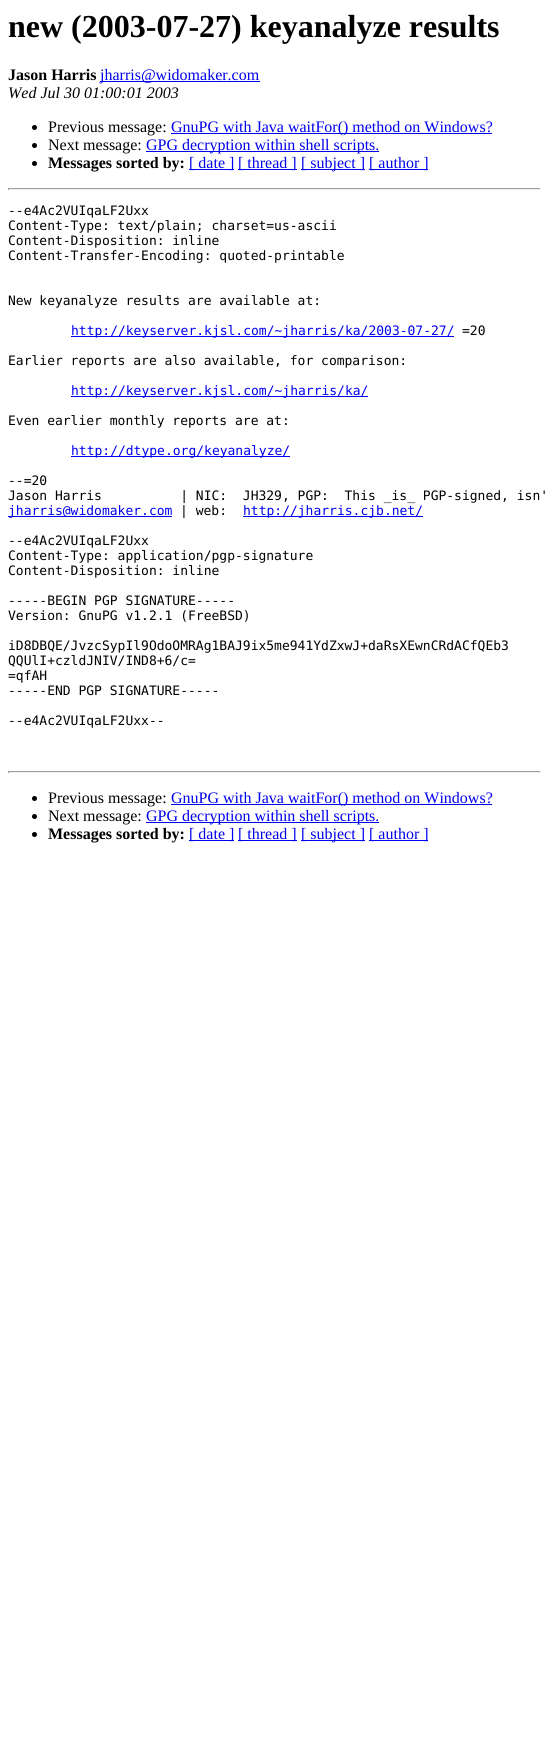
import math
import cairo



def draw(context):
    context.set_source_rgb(1, 1, 1)
    context.paint()
    context.set_source_rgb(0, 0, 238 / 255)
    context.rectangle(100, 81, 160, 1)
    context.fill()
    context.set_source_rgb(0, 0, 0)
    context.arc(34.5, 127.5, 2.5, 0, 2 * math.pi)
    context.fill()
    context.set_source_rgb(0, 0, 238 / 255)
    context.rectangle(171, 133, 321, 1)
    context.fill()
    context.set_source_rgb(0, 0, 0)
    context.arc(34.5, 145.5, 2.5, 0, 2 * math.pi)
    context.fill()
    context.set_source_rgb(0, 0, 238 / 255)
    context.rectangle(146, 151, 233, 1)
    context.fill()
    context.set_source_rgb(0, 0, 0)
    context.arc(34.5, 163.5, 2.5, 0, 2 * math.pi)
    context.fill()
    context.set_source_rgb(0, 0, 238 / 255)
    context.rectangle(189, 169, 45, 1)
    context.fill()
    context.rectangle(238, 169, 59, 1)
    context.fill()
    context.rectangle(301, 169, 64, 1)
    context.fill()
    context.rectangle(369, 169, 59, 1)
    context.fill()
    context.set_source_rgb(159 / 255, 159 / 255, 159 / 255)
    context.rectangle(8, 188, 533, 1)
    context.fill()
    context.set_source_rgb(238 / 255, 238 / 255, 238 / 255)
    context.rectangle(540, 188, 1, 2)
    context.fill()
    context.rectangle(8, 189, 533, 1)
    context.fill()
    context.set_source_rgb(159 / 255, 159 / 255, 159 / 255)
    context.rectangle(8, 188, 1, 2)
    context.fill()
    context.set_source_rgb(0, 0, 238 / 255)
    context.rectangle(71, 336, 383, 1)
    context.fill()
    context.rectangle(71, 396, 297, 1)
    context.fill()
    context.rectangle(71, 456, 219, 1)
    context.fill()
    context.rectangle(8, 516, 164, 1)
    context.fill()
    context.rectangle(243, 516, 180, 1)
    context.fill()
    context.set_source_rgb(159 / 255, 159 / 255, 159 / 255)
    context.rectangle(8, 771, 533, 1)
    context.fill()
    context.set_source_rgb(238 / 255, 238 / 255, 238 / 255)
    context.rectangle(540, 771, 1, 2)
    context.fill()
    context.rectangle(8, 772, 533, 1)
    context.fill()
    context.set_source_rgb(159 / 255, 159 / 255, 159 / 255)
    context.rectangle(8, 771, 1, 2)
    context.fill()
    context.set_source_rgb(0, 0, 0)
    context.arc(34.5, 798.5, 2.5, 0, 2 * math.pi)
    context.fill()
    context.set_source_rgb(0, 0, 238 / 255)
    context.rectangle(171, 804, 321, 1)
    context.fill()
    context.set_source_rgb(0, 0, 0)
    context.arc(34.5, 816.5, 2.5, 0, 2 * math.pi)
    context.fill()
    context.set_source_rgb(0, 0, 238 / 255)
    context.rectangle(146, 822, 233, 1)
    context.fill()
    context.set_source_rgb(0, 0, 0)
    context.arc(34.5, 834.5, 2.5, 0, 2 * math.pi)
    context.fill()
    context.set_source_rgb(0, 0, 238 / 255)
    context.rectangle(189, 840, 45, 1)
    context.fill()
    context.rectangle(238, 840, 59, 1)
    context.fill()
    context.rectangle(301, 840, 64, 1)
    context.fill()
    context.rectangle(369, 840, 59, 1)
    context.fill()
    context.select_font_face("Liberation Serif", cairo.FontSlant.NORMAL, cairo.FontWeight.BOLD)
    context.set_font_size(32)
    context.set_source_rgb(0, 0, 0)
    context.move_to(8, 37)
    context.show_text("new (2003-07-27) keyanalyze results")
    context.set_font_size(16)
    context.move_to(8, 80)
    context.show_text("Jason Harris")
    context.select_font_face("Liberation Serif")
    context.set_source_rgb(0, 0, 238 / 255)
    context.move_to(100, 80)
    context.show_text("jharris@widomaker.com")
    context.select_font_face("Liberation Serif", cairo.FontSlant.ITALIC)
    context.set_source_rgb(0, 0, 0)
    context.move_to(8, 98)
    context.show_text("Wed Jul 30 01:00:01 2003")
    context.select_font_face("Liberation Serif")
    context.move_to(48, 132)
    context.show_text("Previous message:")
    context.set_source_rgb(0, 0, 238 / 255)
    context.move_to(171, 132)
    context.show_text("GnuPG with Java waitFor() method on Windows?")
    context.set_source_rgb(0, 0, 0)
    context.move_to(48, 150)
    context.show_text("Next message:")
    context.set_source_rgb(0, 0, 238 / 255)
    context.move_to(146, 150)
    context.show_text("GPG decryption within shell scripts.")
    context.select_font_face("Liberation Serif", cairo.FontSlant.NORMAL, cairo.FontWeight.BOLD)
    context.set_source_rgb(0, 0, 0)
    context.move_to(48, 168)
    context.show_text("Messages sorted by:")
    context.select_font_face("Liberation Serif")
    context.set_source_rgb(0, 0, 238 / 255)
    context.move_to(189, 168)
    context.show_text("[ date ]")
    context.move_to(238, 168)
    context.show_text("[ thread ]")
    context.move_to(301, 168)
    context.show_text("[ subject ]")
    context.move_to(369, 168)
    context.show_text("[ author ]")
    context.select_font_face("DejaVu Sans Mono")
    context.set_font_size(13)
    context.set_source_rgb(0, 0, 0)
    context.move_to(8, 215)
    context.show_text("--e4Ac2VUIqaLF2Uxx")
    context.move_to(8, 230)
    context.show_text("Content-Type: text/plain; charset=us-ascii")
    context.move_to(8, 245)
    context.show_text("Content-Disposition: inline")
    context.move_to(8, 260)
    context.show_text("Content-Transfer-Encoding: quoted-printable")
    context.move_to(8, 305)
    context.show_text("New keyanalyze results are available at:")
    context.set_source_rgb(0, 0, 238 / 255)
    context.move_to(71, 335)
    context.show_text("http://keyserver.kjsl.com/~jharris/ka/2003-07-27/")
    context.set_source_rgb(0, 0, 0)
    context.move_to(462, 335)
    context.show_text("=20")
    context.move_to(8, 365)
    context.show_text("Earlier reports are also available, for comparison:")
    context.set_source_rgb(0, 0, 238 / 255)
    context.move_to(71, 395)
    context.show_text("http://keyserver.kjsl.com/~jharris/ka/")
    context.set_source_rgb(0, 0, 0)
    context.move_to(8, 425)
    context.show_text("Even earlier monthly reports are at:")
    context.set_source_rgb(0, 0, 238 / 255)
    context.move_to(71, 455)
    context.show_text("http://dtype.org/keyanalyze/")
    context.set_source_rgb(0, 0, 0)
    context.move_to(8, 485)
    context.show_text("--=20")
    context.move_to(8, 500)
    context.show_text("Jason Harris          | NIC:  JH329, PGP:  This _is_ PGP-signed, isn'")
    context.set_source_rgb(0, 0, 238 / 255)
    context.move_to(8, 515)
    context.show_text("jharris@widomaker.com")
    context.set_source_rgb(0, 0, 0)
    context.move_to(180, 515)
    context.show_text("| web:")
    context.set_source_rgb(0, 0, 238 / 255)
    context.move_to(243, 515)
    context.show_text("http://jharris.cjb.net/")
    context.set_source_rgb(0, 0, 0)
    context.move_to(8, 545)
    context.show_text("--e4Ac2VUIqaLF2Uxx")
    context.move_to(8, 560)
    context.show_text("Content-Type: application/pgp-signature")
    context.move_to(8, 575)
    context.show_text("Content-Disposition: inline")
    context.move_to(8, 605)
    context.show_text("-----BEGIN PGP SIGNATURE-----")
    context.move_to(8, 620)
    context.show_text("Version: GnuPG v1.2.1 (FreeBSD)")
    context.move_to(8, 650)
    context.show_text("iD8DBQE/JvzcSypIl9OdoOMRAg1BAJ9ix5me941YdZxwJ+daRsXEwnCRdACfQEb3")
    context.move_to(8, 665)
    context.show_text("QQUlI+czldJNIV/IND8+6/c=")
    context.move_to(8, 680)
    context.show_text("=qfAH")
    context.move_to(8, 695)
    context.show_text("-----END PGP SIGNATURE-----")
    context.move_to(8, 725)
    context.show_text("--e4Ac2VUIqaLF2Uxx--")
    context.select_font_face("Liberation Serif")
    context.set_font_size(16)
    context.move_to(48, 803)
    context.show_text("Previous message:")
    context.set_source_rgb(0, 0, 238 / 255)
    context.move_to(171, 803)
    context.show_text("GnuPG with Java waitFor() method on Windows?")
    context.set_source_rgb(0, 0, 0)
    context.move_to(48, 821)
    context.show_text("Next message:")
    context.set_source_rgb(0, 0, 238 / 255)
    context.move_to(146, 821)
    context.show_text("GPG decryption within shell scripts.")
    context.select_font_face("Liberation Serif", cairo.FontSlant.NORMAL, cairo.FontWeight.BOLD)
    context.set_source_rgb(0, 0, 0)
    context.move_to(48, 839)
    context.show_text("Messages sorted by:")
    context.select_font_face("Liberation Serif")
    context.set_source_rgb(0, 0, 238 / 255)
    context.move_to(189, 839)
    context.show_text("[ date ]")
    context.move_to(238, 839)
    context.show_text("[ thread ]")
    context.move_to(301, 839)
    context.show_text("[ subject ]")
    context.move_to(369, 839)
    context.show_text("[ author ]")


surface = cairo.ImageSurface(cairo.Format.RGB24, 549, 1738)
context = cairo.Context(surface)
options = cairo.FontOptions()
options.set_hint_metrics(cairo.HintMetrics.OFF)
options.set_hint_style(cairo.HintStyle.NONE)
context.set_font_options(options)
context.set_miter_limit(4)
draw(context)
surface.write_to_png("out.png")
